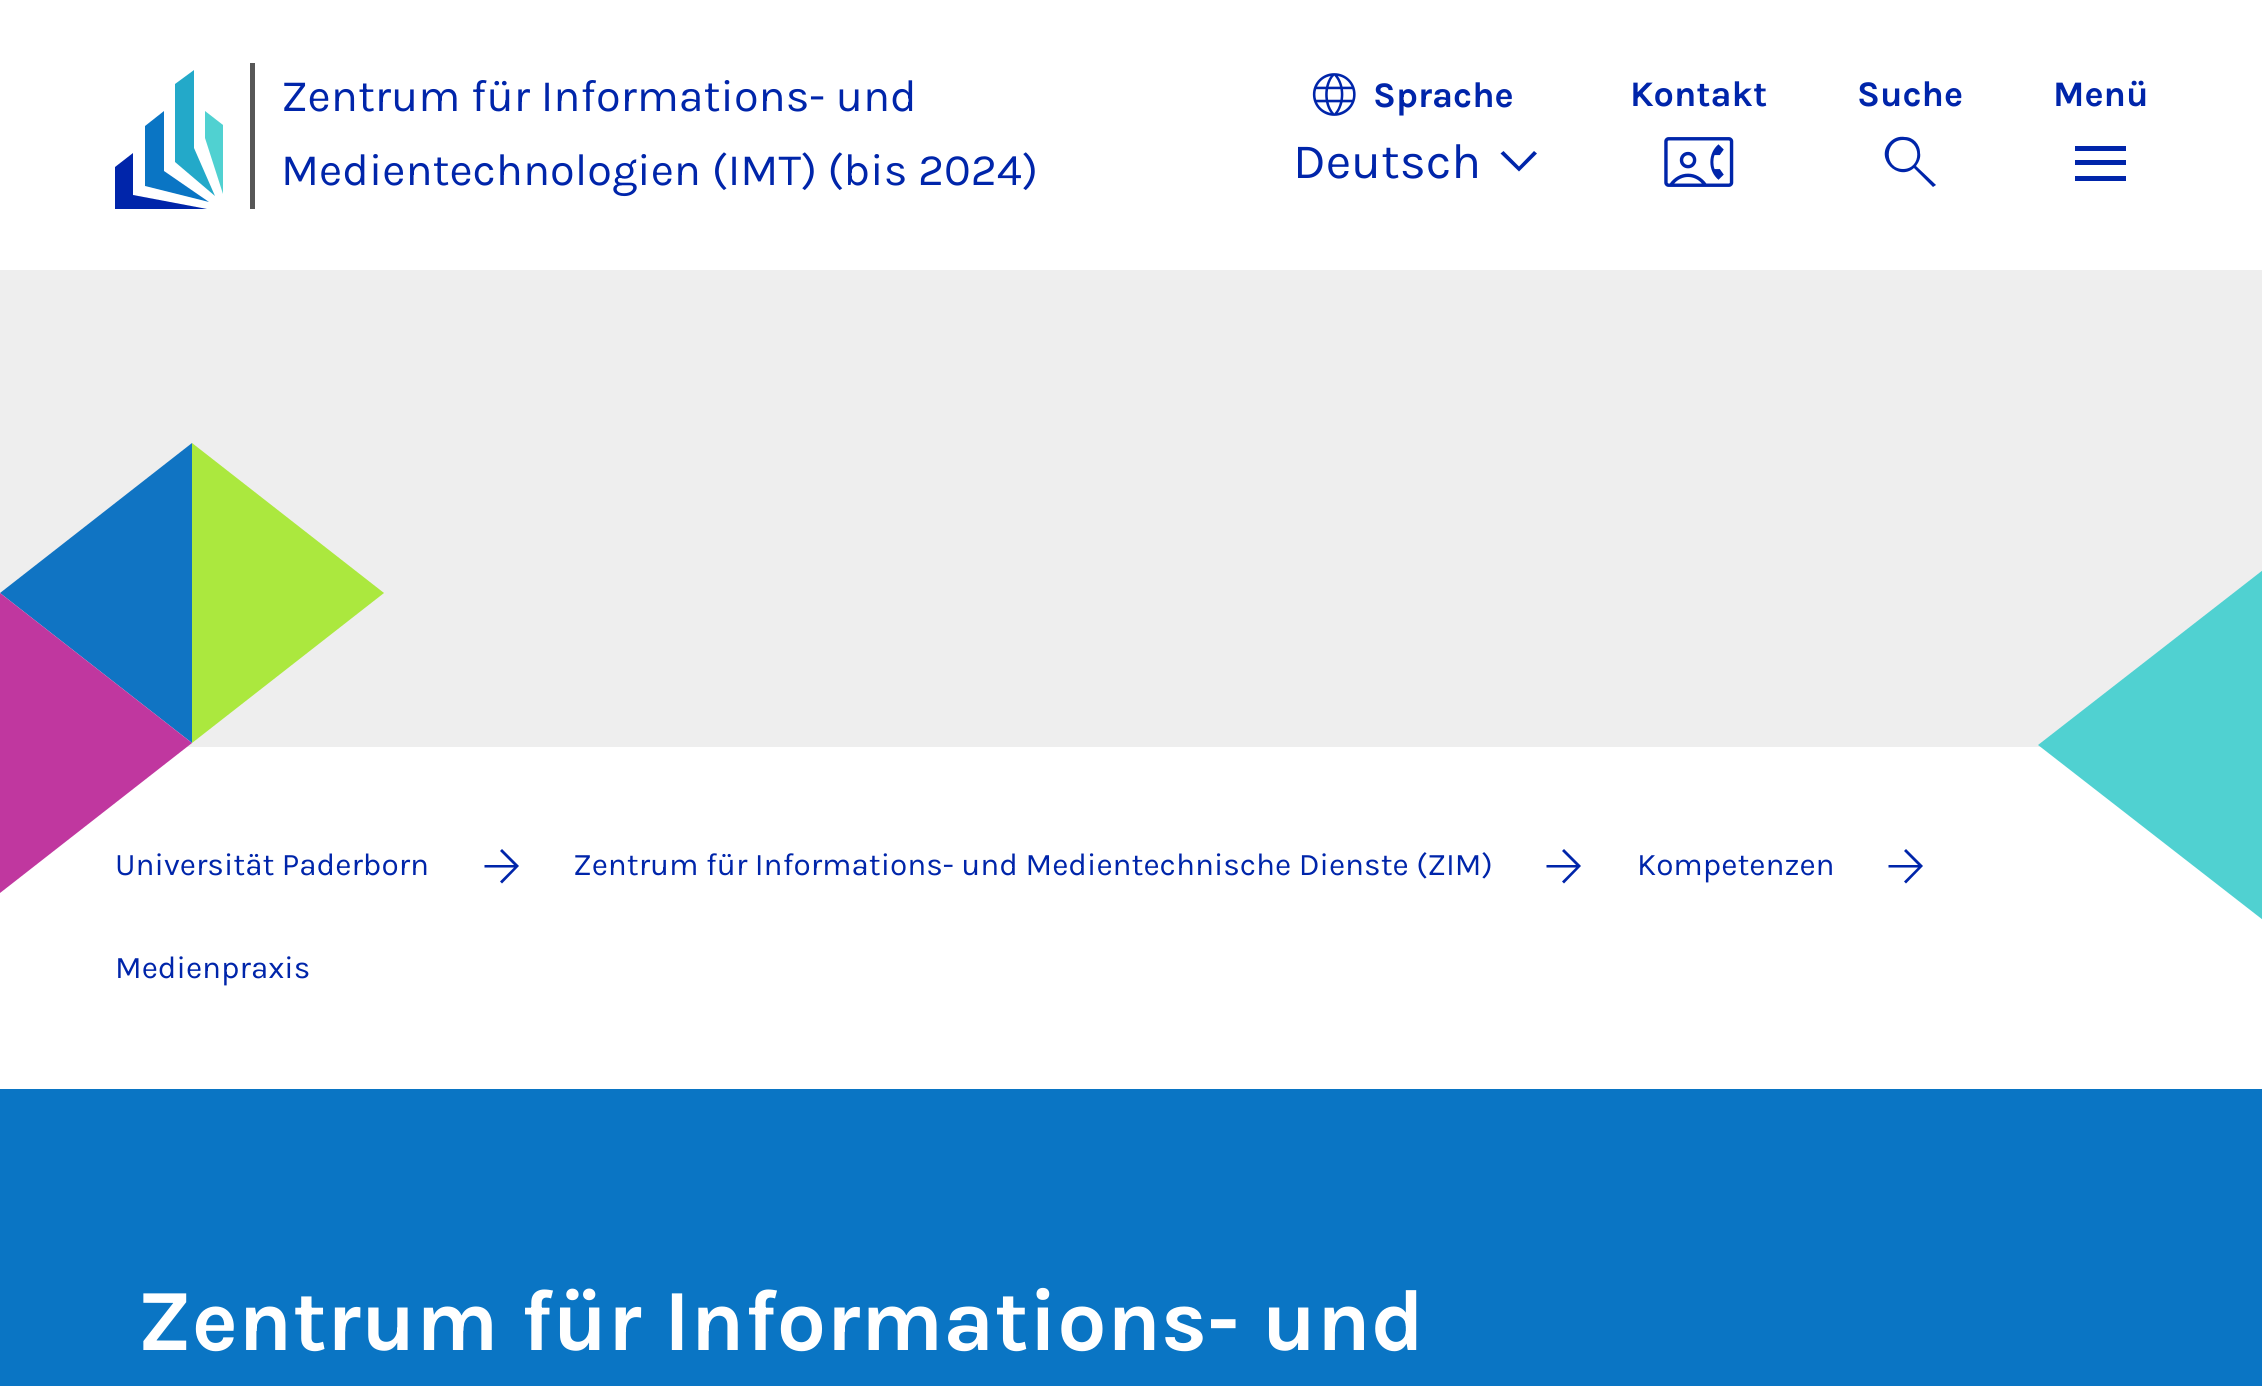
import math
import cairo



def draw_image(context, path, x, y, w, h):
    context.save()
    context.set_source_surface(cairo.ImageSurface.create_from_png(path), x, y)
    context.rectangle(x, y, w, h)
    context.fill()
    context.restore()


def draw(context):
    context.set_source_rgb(1, 1, 1)
    context.paint()
    context.set_source_rgb(80 / 255, 209 / 255, 209 / 255)
    context.new_path()
    context.move_to(205, 111)
    context.line_to(223, 125)
    context.line_to(223, 194)
    context.line_to(205, 138)
    context.close_path()
    context.fill()
    context.set_source_rgb(35 / 255, 169 / 255, 201 / 255)
    context.new_path()
    context.move_to(194, 148)
    context.line_to(215, 196)
    context.line_to(175, 162)
    context.line_to(175, 84)
    context.line_to(194, 70)
    context.close_path()
    context.fill()
    context.set_source_rgb(10 / 255, 117 / 255, 196 / 255)
    context.new_path()
    context.move_to(164, 171)
    context.line_to(209, 202)
    context.line_to(145, 186)
    context.line_to(145, 126)
    context.line_to(164, 111)
    context.close_path()
    context.fill()
    context.set_source_rgb(0, 37 / 255, 170 / 255)
    context.new_path()
    context.move_to(133, 194)
    context.line_to(133, 195)
    context.line_to(207, 209)
    context.line_to(115, 209)
    context.line_to(115, 167)
    context.line_to(133, 153)
    context.close_path()
    context.fill()
    context.set_source_rgb(87 / 255, 87 / 255, 87 / 255)
    context.rectangle(250, 63, 5, 146)
    context.fill()
    draw_image(context, "images/1.png", 1312, 73, 44, 43)
    context.set_source_rgb(0, 37 / 255, 170 / 255)
    context.new_path()
    context.move_to(1519, 171.5)
    context.line_to(1500.5, 153.5)
    context.line_to(1503.5, 151)
    context.line_to(1519, 166.5)
    context.line_to(1534, 151)
    context.line_to(1537, 153.5)
    context.close_path()
    context.fill()
    draw_image(context, "images/2.png", 1664, 137, 70, 50)
    context.new_path()
    context.move_to(1933, 187)
    context.line_to(1914, 168)
    context.curve_to(1898, 182, 1874, 158, 1890, 142)
    context.curve_to(1894, 138, 1899, 136, 1905, 137)
    context.curve_to(1913, 137, 1920, 144, 1920, 153)
    context.curve_to(1921, 157, 1919, 162, 1916, 166)
    context.line_to(1936, 185)
    context.close_path()
    context.move_to(1903, 169)
    context.curve_to(1922, 169, 1922, 140, 1903, 140)
    context.curve_to(1884, 140, 1884, 169, 1903, 169)
    context.close_path()
    context.fill()
    context.rectangle(2075, 160, 51, 5)
    context.fill()
    context.rectangle(2075, 146, 51, 5)
    context.fill()
    context.rectangle(2075, 176, 51, 5)
    context.fill()
    context.set_source_rgb(238 / 255, 238 / 255, 238 / 255)
    context.rectangle(0, 270, 2262, 477)
    context.fill()
    context.set_source_rgb(171 / 255, 232 / 255, 62 / 255)
    context.new_path()
    context.move_to(384, 593)
    context.line_to(192, 743)
    context.line_to(192, 443)
    context.close_path()
    context.fill()
    context.set_source_rgb(16 / 255, 116 / 255, 195 / 255)
    context.new_path()
    context.move_to(0, 593)
    context.line_to(192, 443)
    context.line_to(192, 743)
    context.close_path()
    context.fill()
    context.set_source_rgb(0, 37 / 255, 170 / 255)
    context.new_path()
    context.move_to(502, 883.5)
    context.line_to(500, 881.5)
    context.line_to(514, 867.5)
    context.line_to(484.5, 867.5)
    context.line_to(484.5, 865)
    context.line_to(514, 865)
    context.line_to(500, 851)
    context.line_to(502, 849)
    context.line_to(519, 866)
    context.close_path()
    context.fill()
    context.new_path()
    context.move_to(1564, 883.5)
    context.line_to(1562, 881.5)
    context.line_to(1576, 867.5)
    context.line_to(1546.5, 867.5)
    context.line_to(1546.5, 865)
    context.line_to(1576, 865)
    context.line_to(1562, 851)
    context.line_to(1564, 849)
    context.line_to(1581, 866)
    context.close_path()
    context.fill()
    context.new_path()
    context.move_to(1906, 883.5)
    context.line_to(1904, 881.5)
    context.line_to(1918, 867.5)
    context.line_to(1888.5, 867.5)
    context.line_to(1888.5, 865)
    context.line_to(1918, 865)
    context.line_to(1904, 851)
    context.line_to(1906, 849)
    context.line_to(1923, 866)
    context.close_path()
    context.fill()
    context.set_source_rgb(80 / 255, 209 / 255, 209 / 255)
    context.new_path()
    context.move_to(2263, 570)
    context.line_to(2038, 745)
    context.line_to(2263, 920)
    context.close_path()
    context.fill()
    context.set_source_rgb(10 / 255, 117 / 255, 196 / 255)
    context.rectangle(0, 1089, 2262, 297)
    context.fill()
    context.select_font_face("Karla")
    context.set_font_size(45)
    context.set_source_rgb(0, 37 / 255, 170 / 255)
    context.move_to(281, 111)
    context.show_text("Zentrum für Informations- und")
    context.move_to(281, 185)
    context.show_text("Medientechnologien (IMT) (bis 2024)")
    context.select_font_face("Karla", cairo.FontSlant.NORMAL, cairo.FontWeight.BOLD)
    context.set_font_size(36)
    context.move_to(1373, 107)
    context.show_text("Sprache")
    context.select_font_face("Karla")
    context.set_font_size(49.5)
    context.move_to(1293, 178)
    context.show_text("Deutsch")
    context.select_font_face("Karla", cairo.FontSlant.NORMAL, cairo.FontWeight.BOLD)
    context.set_font_size(36)
    context.move_to(1630, 106)
    context.show_text("Kontakt")
    context.move_to(1857, 106)
    context.show_text("Suche")
    context.move_to(2053, 106)
    context.show_text("Menü")
    context.select_font_face("Karla")
    context.set_font_size(31.5)
    context.move_to(115, 875)
    context.show_text("Universität Paderborn")
    context.set_source_rgb(192 / 255, 55 / 255, 159 / 255)
    context.new_path()
    context.move_to(192, 743)
    context.line_to(0, 893)
    context.line_to(0, 593)
    context.close_path()
    context.fill()
    context.set_source_rgb(0, 37 / 255, 170 / 255)
    context.move_to(573, 875)
    context.show_text("Zentrum für Informations- und Medientechnische Dienste (ZIM)")
    context.move_to(1637, 875)
    context.show_text("Kompetenzen")
    context.move_to(115, 978)
    context.show_text("Medienpraxis")
    context.select_font_face("Karla", cairo.FontSlant.NORMAL, cairo.FontWeight.BOLD)
    context.set_font_size(87.25)
    context.set_source_rgb(1, 1, 1)
    context.move_to(137, 1350)
    context.show_text("Zentrum für Informations- und")


surface = cairo.ImageSurface(cairo.Format.RGB24, 2262, 1386)
context = cairo.Context(surface)
options = cairo.FontOptions()
options.set_hint_metrics(cairo.HintMetrics.OFF)
options.set_hint_style(cairo.HintStyle.NONE)
context.set_font_options(options)
context.set_miter_limit(4)
draw(context)
surface.write_to_png("out.png")
